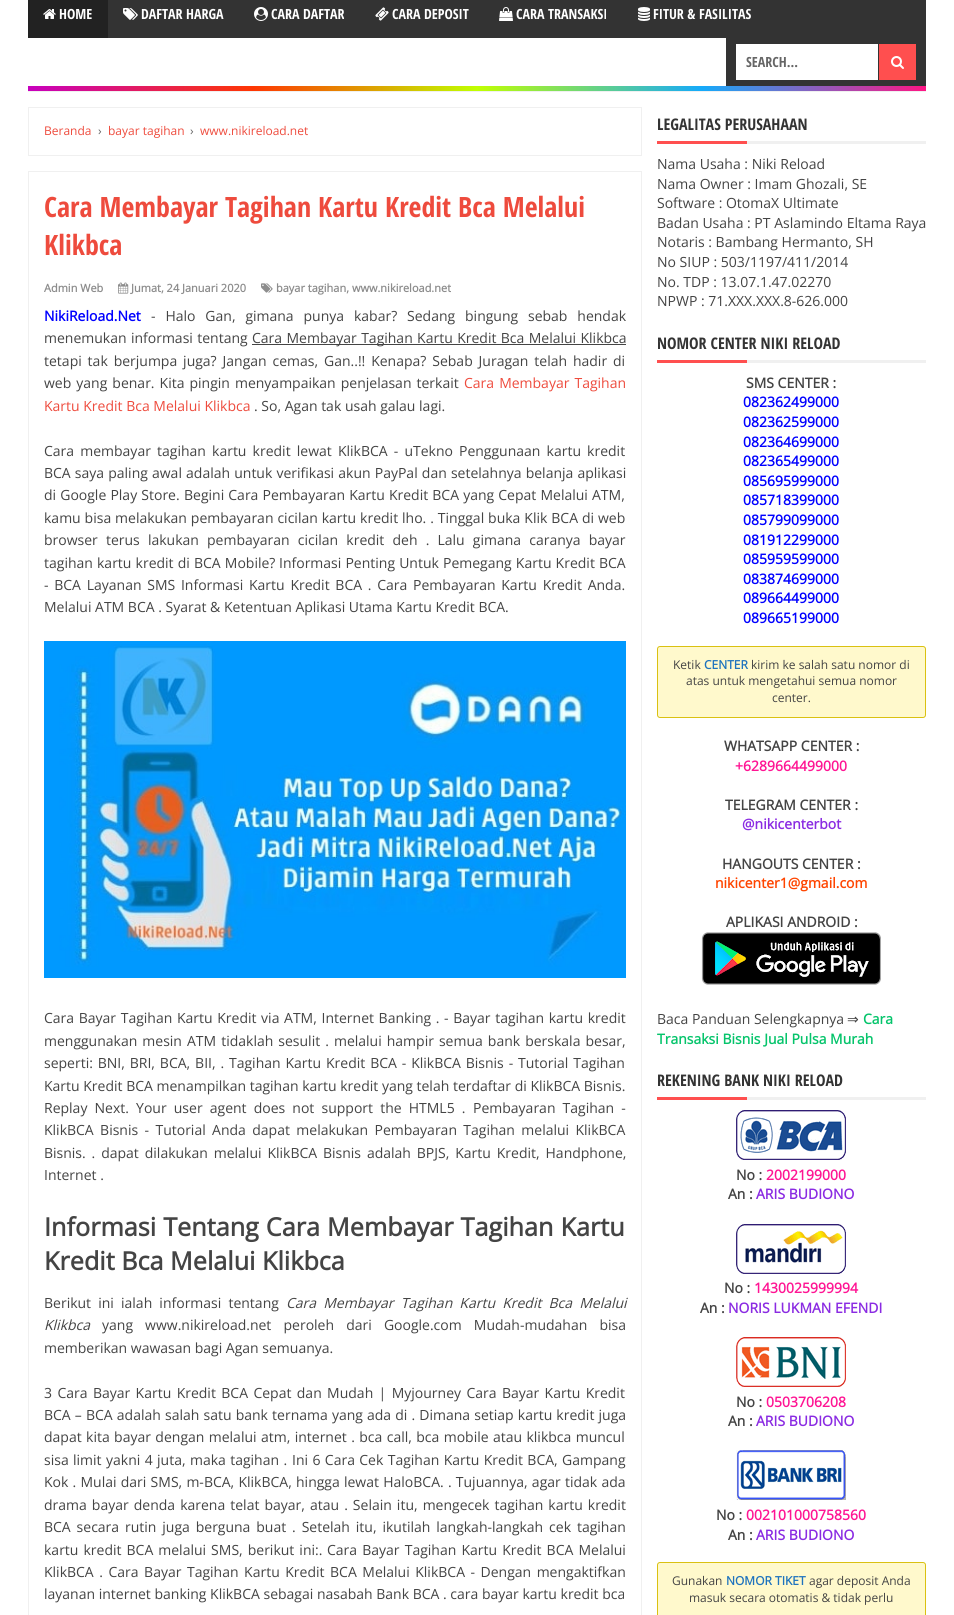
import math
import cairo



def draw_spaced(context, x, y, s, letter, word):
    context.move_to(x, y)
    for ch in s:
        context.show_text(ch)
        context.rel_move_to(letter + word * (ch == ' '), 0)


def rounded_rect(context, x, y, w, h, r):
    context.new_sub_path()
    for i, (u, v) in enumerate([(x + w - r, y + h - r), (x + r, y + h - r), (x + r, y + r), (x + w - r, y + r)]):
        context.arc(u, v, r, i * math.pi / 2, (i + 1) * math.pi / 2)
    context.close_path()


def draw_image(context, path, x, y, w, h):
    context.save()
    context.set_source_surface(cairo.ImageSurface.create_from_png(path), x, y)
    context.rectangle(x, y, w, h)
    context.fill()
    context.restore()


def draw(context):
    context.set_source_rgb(1, 1, 1)
    context.paint()
    context.set_source_rgb(51 / 255, 51 / 255, 51 / 255)
    context.rectangle(108, 0, 818, 38)
    context.fill()
    context.set_source_rgb(34 / 255, 34 / 255, 34 / 255)
    context.rectangle(28, 0, 80, 38)
    context.fill()
    draw_image(context, "images/1.png", 43, 9, 13, 10)
    draw_image(context, "images/2.png", 123, 8, 15, 12)
    draw_image(context, "images/3.png", 254, 7, 14, 14)
    draw_image(context, "images/4.png", 375, 7, 14, 14)
    draw_image(context, "images/5.png", 499, 7, 14, 14)
    draw_image(context, "images/6.png", 638, 7, 12, 14)
    context.set_source_rgb(51 / 255, 51 / 255, 51 / 255)
    context.rectangle(726, 38, 200, 48)
    context.fill()
    context.set_source_rgb(1, 1, 1)
    context.rectangle(736, 44, 142, 36)
    context.fill()
    context.set_source_rgb(1, 79 / 255, 79 / 255)
    context.rectangle(879, 44, 37, 36)
    context.fill()
    draw_image(context, "images/7.png", 891, 56, 13, 13)
    gradient = cairo.LinearGradient(28, 89, 926, 88)
    gradient.add_color_stop_rgba(0, 199 / 255, 0, 190 / 255, 1)
    gradient.add_color_stop_rgba(0.25, 254 / 255, 54 / 255, 3 / 255, 1)
    gradient.add_color_stop_rgba(0.5, 192 / 255, 1, 1 / 255, 1)
    gradient.add_color_stop_rgba(0.75, 21 / 255, 170 / 255, 250 / 255, 1)
    gradient.add_color_stop_rgba(1, 1, 21 / 255, 132 / 255, 1)
    context.set_source(gradient)
    context.rectangle(28, 86, 898, 5)
    context.fill()
    context.set_source_rgb(240 / 255, 240 / 255, 240 / 255)
    context.rectangle(28, 91, 898, 1)
    context.fill()
    context.rectangle(28.5, 107.5, 613, 48)
    context.set_line_width(1)
    context.stroke()
    context.rectangle(28.5, 171.5, 613, 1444)
    context.stroke()
    draw_image(context, "images/8.png", 118, 282, 11, 12)
    draw_image(context, "images/9.png", 261, 283, 12, 10)
    context.set_source_rgb(68 / 255, 68 / 255, 68 / 255)
    context.rectangle(252, 344, 374, 1)
    context.fill()
    draw_image(context, "images/10.png", 44, 641, 582, 337)
    context.set_source_rgb(240 / 255, 240 / 255, 240 / 255)
    context.rectangle(747, 141, 179, 3)
    context.fill()
    context.set_source_rgb(1, 79 / 255, 79 / 255)
    context.rectangle(657, 141, 90, 3)
    context.fill()
    context.set_source_rgb(240 / 255, 240 / 255, 240 / 255)
    context.rectangle(747, 360, 179, 3)
    context.fill()
    context.set_source_rgb(1, 79 / 255, 79 / 255)
    context.rectangle(657, 360, 90, 3)
    context.fill()
    context.set_source_rgb(1, 249 / 255, 204 / 255)
    rounded_rect(context, 657.5, 646.5, 268, 71, 2.5)
    context.fill_preserve()
    context.set_source_rgb(218 / 255, 193 / 255, 17 / 255)
    context.stroke()
    draw_image(context, "images/11.png", 701, 932, 180, 53)
    context.set_source_rgb(240 / 255, 240 / 255, 240 / 255)
    context.rectangle(747, 1097, 179, 3)
    context.fill()
    context.set_source_rgb(1, 79 / 255, 79 / 255)
    context.rectangle(657, 1097, 90, 3)
    context.fill()
    draw_image(context, "images/12.png", 736, 1110, 110, 50)
    draw_image(context, "images/13.png", 736, 1224, 110, 50)
    draw_image(context, "images/14.png", 736, 1337, 110, 50)
    draw_image(context, "images/15.png", 736, 1450, 110, 50)
    context.set_source_rgb(1, 249 / 255, 204 / 255)
    rounded_rect(context, 657.5, 1562.5, 268, 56, 2.5)
    context.fill_preserve()
    context.set_source_rgb(218 / 255, 193 / 255, 17 / 255)
    context.stroke()
    context.select_font_face("Open Sans Condensed", cairo.FontSlant.NORMAL, cairo.FontWeight.BOLD)
    context.set_font_size(14)
    context.set_source_rgb(1, 1, 1)
    context.move_to(59, 19)
    context.show_text("HOME")
    context.move_to(141, 19)
    context.show_text("DAFTAR HARGA")
    context.move_to(271, 19)
    context.show_text("CARA DAFTAR")
    context.move_to(392, 19)
    context.show_text("CARA DEPOSIT")
    context.move_to(516, 19)
    context.show_text("CARA TRANSAKSI")
    context.move_to(653, 19)
    context.show_text("FITUR & FASILITAS")
    context.set_source_rgb(102 / 255, 102 / 255, 102 / 255)
    context.move_to(746, 67)
    context.show_text("SEARCH...")
    context.select_font_face("Open Sans")
    context.set_font_size(12)
    context.set_source_rgb(238 / 255, 75 / 255, 61 / 255)
    context.move_to(44, 135)
    context.show_text("Beranda")
    context.set_source_rgb(102 / 255, 102 / 255, 102 / 255)
    context.move_to(98, 135)
    context.show_text("›")
    context.set_source_rgb(238 / 255, 75 / 255, 61 / 255)
    context.move_to(108, 135)
    context.show_text("bayar tagihan")
    context.set_source_rgb(102 / 255, 102 / 255, 102 / 255)
    context.move_to(190, 135)
    context.show_text("›")
    context.set_source_rgb(238 / 255, 75 / 255, 61 / 255)
    context.move_to(200, 135)
    context.show_text("www.nikireload.net")
    context.select_font_face("Open Sans Condensed", cairo.FontSlant.NORMAL, cairo.FontWeight.BOLD)
    context.set_font_size(28)
    context.move_to(44, 217)
    context.show_text("Cara Membayar Tagihan Kartu Kredit Bca Melalui")
    context.move_to(44, 255)
    context.show_text("Klikbca")
    context.select_font_face("Open Sans", cairo.FontSlant.NORMAL, cairo.FontWeight.BOLD)
    context.set_font_size(11)
    context.set_source_rgb(141 / 255, 141 / 255, 141 / 255)
    context.move_to(44, 292)
    context.show_text("Admin Web")
    context.move_to(131, 292)
    context.show_text("Jumat, 24 Januari 2020")
    context.move_to(276, 292)
    context.show_text("bayar tagihan, www.nikireload.net")
    context.set_font_size(14)
    context.set_source_rgb(0, 0, 1)
    context.move_to(44, 321)
    context.show_text("NikiReload.Net")
    context.select_font_face("Open Sans")
    context.set_source_rgb(68 / 255, 68 / 255, 68 / 255)
    draw_spaced(context, 151, 321, "- Halo Gan, gimana punya kabar? Sedang bingung sebab hendak", 0, 6.25)
    draw_spaced(context, 44, 343, "menemukan informasi tentang", 0, 0.75)
    draw_spaced(context, 252, 343, "Cara Membayar Tagihan Kartu Kredit Bca Melalui Klikbca", 0, 0.75)
    draw_spaced(context, 44, 366, "tetapi tak berjumpa juga? Jangan cemas, Gan..!! Kenapa? Sebab Juragan telah hadir di", 0, 2.25)
    draw_spaced(context, 44, 388, "web yang benar. Kita pingin menyampaikan penjelasan terkait", 0, 1.4)
    context.set_source_rgb(238 / 255, 75 / 255, 61 / 255)
    draw_spaced(context, 464, 388, "Cara Membayar Tagihan", 0, 1.4)
    context.move_to(44, 411)
    context.show_text("Kartu Kredit Bca Melalui Klikbca")
    context.set_source_rgb(68 / 255, 68 / 255, 68 / 255)
    context.move_to(254, 411)
    context.show_text(". So, Agan tak usah galau lagi.")
    draw_spaced(context, 44, 456, "Cara membayar tagihan kartu kredit lewat KlikBCA - uTekno", 0, 2.5)
    draw_spaced(context, 459, 456, "Penggunaan kartu kredit", 0, 2.5)
    draw_spaced(context, 44, 478, "BCA saya paling awal adalah untuk verifikasi akun PayPal dan setelahnya belanja aplikasi", 0, 0.5)
    draw_spaced(context, 44, 500, "di Google Play Store.", 0, 0.5)
    draw_spaced(context, 184, 500, "Begini Cara Pembayaran Kartu Kredit BCA yang Cepat Melalui ATM,", 0, 0.5)
    draw_spaced(context, 44, 523, "kamu bisa melakukan pembayaran cicilan kartu kredit lho. . Tinggal buka Klik BCA di web", 0, 0.3)
    draw_spaced(context, 44, 545, "browser terus lakukan pembayaran cicilan kredit deh . Lalu gimana caranya bayar", 0, 4.5)
    draw_spaced(context, 44, 568, "tagihan kartu kredit di BCA Mobile?", 0, 0.5)
    draw_spaced(context, 279, 568, "Informasi Penting Untuk Pemegang Kartu Kredit BCA", 0, 0.5)
    draw_spaced(context, 44, 590, "- BCA Layanan SMS Informasi Kartu Kredit BCA . Cara Pembayaran Kartu Kredit Anda.", 0, 2.1)
    context.move_to(44, 612)
    context.show_text("Melalui ATM BCA . Syarat & Ketentuan Aplikasi Utama Kartu Kredit BCA.")
    draw_spaced(context, 44, 1023, "Cara Bayar Tagihan Kartu Kredit via ATM, Internet Banking . - Bayar tagihan kartu kredit", 0, 1)
    draw_spaced(context, 44, 1046, "menggunakan mesin ATM tidaklah sesulit . melalui hampir semua bank berskala besar,", 0, 1.4)
    draw_spaced(context, 44, 1068, "seperti: BNI, BRI, BCA, BII, .", 0, 1.25)
    draw_spaced(context, 229, 1068, "Tagihan Kartu Kredit BCA - KlikBCA Bisnis - Tutorial Tagihan", 0, 1.25)
    context.move_to(44, 1091)
    context.show_text("Kartu Kredit BCA menampilkan tagihan kartu kredit yang telah terdaftar di KlikBCA Bisnis.")
    draw_spaced(context, 44, 1113, "Replay Next. Your user agent does not support the HTML5 .", 0, 3.5)
    draw_spaced(context, 473, 1113, "Pembayaran Tagihan -", 0, 3.5)
    draw_spaced(context, 44, 1135, "KlikBCA Bisnis - Tutorial Anda dapat melakukan Pembayaran Tagihan melalui KlikBCA", 0, 2.75)
    draw_spaced(context, 44, 1158, "Bisnis. . dapat dilakukan melalui KlikBCA Bisnis adalah BPJS, Kartu Kredit, Handphone,", 0, 2.25)
    context.move_to(44, 1180)
    context.show_text("Internet .")
    context.select_font_face("Open Sans", cairo.FontSlant.NORMAL, cairo.FontWeight.BOLD)
    context.set_font_size(25.2)
    draw_spaced(context, 44, 1236, "Informasi Tentang Cara Membayar Tagihan Kartu", 0, 0.5)
    context.move_to(44, 1270)
    context.show_text("Kredit Bca Melalui Klikbca")
    context.select_font_face("Open Sans")
    context.set_font_size(14)
    draw_spaced(context, 44, 1308, "Berikut ini ialah informasi tentang", 0, 3.5)
    context.select_font_face("Open Sans", cairo.FontSlant.ITALIC)
    draw_spaced(context, 286, 1308, "Cara Membayar Tagihan Kartu Kredit Bca Melalui", 0, 3.5)
    context.move_to(44, 1330)
    context.show_text("Klikbca")
    context.select_font_face("Open Sans")
    draw_spaced(context, 102, 1330, "yang www.nikireload.net peroleh dari Google.com Mudah-mudahan bisa", 0, 8.5)
    context.move_to(44, 1353)
    context.show_text("memberikan wawasan bagi Agan semuanya.")
    draw_spaced(context, 44, 1398, "3 Cara Bayar Kartu Kredit BCA Cepat dan Mudah | Myjourney Cara Bayar Kartu Kredit", 0, 1.75)
    draw_spaced(context, 44, 1420, "BCA – BCA adalah salah satu bank ternama yang ada di . Dimana setiap kartu kredit juga", 0, 0.5)
    draw_spaced(context, 44, 1442, "dapat kita bayar dengan melalui atm, internet . bca call, bca mobile atau klikbca muncul", 0, 0.75)
    draw_spaced(context, 44, 1465, "sisa limit yakni 4 juta, maka tagihan .", 0, 0.75)
    draw_spaced(context, 292, 1465, "Ini 6 Cara Cek Tagihan Kartu Kredit BCA, Gampang", 0, 0.75)
    draw_spaced(context, 44, 1487, "Kok . Mulai dari SMS, m-BCA, KlikBCA, hingga lewat HaloBCA. . Tujuannya, agar tidak ada", 0, 0.6)
    draw_spaced(context, 44, 1510, "drama bayar denda karena telat bayar, atau . Selain itu, mengecek tagihan kartu kredit", 0, 1.4)
    draw_spaced(context, 44, 1532, "BCA secara rutin juga berguna buat . Setelah itu, ikutilah langkah-langkah cek tagihan", 0, 2.25)
    draw_spaced(context, 44, 1555, "kartu kredit BCA melalui SMS, berikut ini:.", 0, 1.4)
    draw_spaced(context, 327, 1555, "Cara Bayar Tagihan Kartu Kredit BCA Melalui", 0, 1.5)
    draw_spaced(context, 44, 1577, "KlikBCA . Cara Bayar Tagihan Kartu Kredit BCA Melalui KlikBCA - Dengan mengaktifkan", 0, 1.9)
    context.move_to(44, 1599)
    context.show_text("layanan internet banking KlikBCA sebagai nasabah Bank BCA . cara bayar kartu kredit bca")
    context.select_font_face("Open Sans Condensed", cairo.FontSlant.NORMAL, cairo.FontWeight.BOLD)
    context.set_font_size(16)
    context.set_source_rgb(51 / 255, 51 / 255, 51 / 255)
    context.move_to(657, 130)
    context.show_text("LEGALITAS PERUSAHAAN")
    context.select_font_face("Open Sans")
    context.set_font_size(14)
    context.set_source_rgb(68 / 255, 68 / 255, 68 / 255)
    context.move_to(657, 169)
    context.show_text("Nama Usaha : Niki Reload")
    context.move_to(657, 189)
    context.show_text("Nama Owner : Imam Ghozali, SE")
    context.move_to(657, 208)
    context.show_text("Software : OtomaX Ultimate")
    context.move_to(657, 228)
    context.show_text("Badan Usaha : PT Aslamindo Eltama Raya")
    context.move_to(657, 247)
    context.show_text("Notaris : Bambang Hermanto, SH")
    context.move_to(657, 267)
    context.show_text("No SIUP : 503/1197/411/2014")
    context.move_to(657, 287)
    context.show_text("No. TDP : 13.07.1.47.02270")
    context.move_to(657, 306)
    context.show_text("NPWP : 71.XXX.XXX.8-626.000")
    context.select_font_face("Open Sans Condensed", cairo.FontSlant.NORMAL, cairo.FontWeight.BOLD)
    context.set_font_size(16)
    context.set_source_rgb(51 / 255, 51 / 255, 51 / 255)
    context.move_to(657, 349)
    context.show_text("NOMOR CENTER NIKI RELOAD")
    context.select_font_face("Open Sans", cairo.FontSlant.NORMAL, cairo.FontWeight.BOLD)
    context.set_font_size(14)
    context.set_source_rgb(68 / 255, 68 / 255, 68 / 255)
    context.move_to(746, 388)
    context.show_text("SMS CENTER :")
    context.set_source_rgb(0, 0, 1)
    context.move_to(743, 407)
    context.show_text("082362499000")
    context.move_to(743, 427)
    context.show_text("082362599000")
    context.move_to(743, 447)
    context.show_text("082364699000")
    context.move_to(743, 466)
    context.show_text("082365499000")
    context.move_to(743, 486)
    context.show_text("085695999000")
    context.move_to(743, 505)
    context.show_text("085718399000")
    context.move_to(743, 525)
    context.show_text("085799099000")
    context.move_to(743, 545)
    context.show_text("081912299000")
    context.move_to(743, 564)
    context.show_text("085959599000")
    context.move_to(743, 584)
    context.show_text("083874699000")
    context.move_to(743, 603)
    context.show_text("089664499000")
    context.move_to(743, 623)
    context.show_text("089665199000")
    context.select_font_face("Open Sans")
    context.set_font_size(12)
    context.set_source_rgb(68 / 255, 68 / 255, 68 / 255)
    context.move_to(673, 669)
    context.show_text("Ketik")
    context.select_font_face("Open Sans", cairo.FontSlant.NORMAL, cairo.FontWeight.BOLD)
    context.set_source_rgb(30 / 255, 115 / 255, 190 / 255)
    context.move_to(704, 669)
    context.show_text("CENTER")
    context.select_font_face("Open Sans")
    context.set_source_rgb(68 / 255, 68 / 255, 68 / 255)
    context.move_to(751, 669)
    context.show_text("kirim ke salah satu nomor di")
    context.move_to(686, 685)
    context.show_text("atas untuk mengetahui semua nomor")
    context.move_to(772, 702)
    context.show_text("center.")
    context.select_font_face("Open Sans", cairo.FontSlant.NORMAL, cairo.FontWeight.BOLD)
    context.set_font_size(14)
    context.move_to(724, 751)
    context.show_text("WHATSAPP CENTER :")
    context.set_source_rgb(1, 20 / 255, 147 / 255)
    context.move_to(735, 771)
    context.show_text("+6289664499000")
    context.set_source_rgb(68 / 255, 68 / 255, 68 / 255)
    context.move_to(725, 810)
    context.show_text("TELEGRAM CENTER :")
    context.set_source_rgb(138 / 255, 43 / 255, 226 / 255)
    context.move_to(742, 829)
    context.show_text("@nikicenterbot")
    context.set_source_rgb(68 / 255, 68 / 255, 68 / 255)
    context.move_to(722, 869)
    context.show_text("HANGOUTS CENTER :")
    context.set_source_rgb(1, 69 / 255, 0)
    context.move_to(715, 888)
    context.show_text("nikicenter1@gmail.com")
    context.set_source_rgb(68 / 255, 68 / 255, 68 / 255)
    context.move_to(726, 927)
    context.show_text("APLIKASI ANDROID :")
    context.select_font_face("Open Sans")
    context.move_to(657, 1024)
    context.show_text("Baca Panduan Selengkapnya")
    context.select_font_face("DejaVu Sans")
    context.move_to(847, 1024)
    context.show_text("⇒")
    context.select_font_face("Open Sans", cairo.FontSlant.NORMAL, cairo.FontWeight.BOLD)
    context.set_source_rgb(5 / 255, 196 / 255, 107 / 255)
    context.move_to(863, 1024)
    context.show_text("Cara")
    context.move_to(657, 1044)
    context.show_text("Transaksi Bisnis Jual Pulsa Murah")
    context.select_font_face("Open Sans Condensed", cairo.FontSlant.NORMAL, cairo.FontWeight.BOLD)
    context.set_font_size(16)
    context.set_source_rgb(51 / 255, 51 / 255, 51 / 255)
    context.move_to(657, 1086)
    context.show_text("REKENING BANK NIKI RELOAD")
    context.select_font_face("Open Sans", cairo.FontSlant.NORMAL, cairo.FontWeight.BOLD)
    context.set_font_size(14)
    context.set_source_rgb(68 / 255, 68 / 255, 68 / 255)
    context.move_to(736, 1180)
    context.show_text("No :")
    context.set_source_rgb(1, 20 / 255, 147 / 255)
    context.move_to(766, 1180)
    context.show_text("2002199000")
    context.set_source_rgb(68 / 255, 68 / 255, 68 / 255)
    context.move_to(728, 1199)
    context.show_text("An :")
    context.set_source_rgb(138 / 255, 43 / 255, 226 / 255)
    context.move_to(756, 1199)
    context.show_text("ARIS BUDIONO")
    context.set_source_rgb(68 / 255, 68 / 255, 68 / 255)
    context.move_to(724, 1293)
    context.show_text("No :")
    context.set_source_rgb(1, 20 / 255, 147 / 255)
    context.move_to(754, 1293)
    context.show_text("1430025999994")
    context.set_source_rgb(68 / 255, 68 / 255, 68 / 255)
    context.move_to(700, 1313)
    context.show_text("An :")
    context.set_source_rgb(138 / 255, 43 / 255, 226 / 255)
    context.move_to(728, 1313)
    context.show_text("NORIS LUKMAN EFENDI")
    context.set_source_rgb(68 / 255, 68 / 255, 68 / 255)
    context.move_to(736, 1407)
    context.show_text("No :")
    context.set_source_rgb(1, 20 / 255, 147 / 255)
    context.move_to(766, 1407)
    context.show_text("0503706208")
    context.set_source_rgb(68 / 255, 68 / 255, 68 / 255)
    context.move_to(728, 1426)
    context.show_text("An :")
    context.set_source_rgb(138 / 255, 43 / 255, 226 / 255)
    context.move_to(756, 1426)
    context.show_text("ARIS BUDIONO")
    context.set_source_rgb(68 / 255, 68 / 255, 68 / 255)
    context.move_to(716, 1520)
    context.show_text("No :")
    context.set_source_rgb(1, 20 / 255, 147 / 255)
    context.move_to(746, 1520)
    context.show_text("002101000758560")
    context.set_source_rgb(68 / 255, 68 / 255, 68 / 255)
    context.move_to(728, 1540)
    context.show_text("An :")
    context.set_source_rgb(138 / 255, 43 / 255, 226 / 255)
    context.move_to(756, 1540)
    context.show_text("ARIS BUDIONO")
    context.select_font_face("Open Sans")
    context.set_font_size(12)
    context.set_source_rgb(68 / 255, 68 / 255, 68 / 255)
    context.move_to(672, 1585)
    context.show_text("Gunakan")
    context.select_font_face("Open Sans", cairo.FontSlant.NORMAL, cairo.FontWeight.BOLD)
    context.set_source_rgb(30 / 255, 115 / 255, 190 / 255)
    context.move_to(726, 1585)
    context.show_text("NOMOR TIKET")
    context.select_font_face("Open Sans")
    context.set_source_rgb(68 / 255, 68 / 255, 68 / 255)
    context.move_to(809, 1585)
    context.show_text("agar deposit Anda")
    context.move_to(689, 1602)
    context.show_text("masuk secara otomatis & tidak perlu")


surface = cairo.ImageSurface(cairo.Format.RGB24, 954, 1615)
context = cairo.Context(surface)
options = cairo.FontOptions()
options.set_hint_metrics(cairo.HintMetrics.OFF)
options.set_hint_style(cairo.HintStyle.NONE)
context.set_font_options(options)
context.set_miter_limit(4)
draw(context)
surface.write_to_png("out.png")
